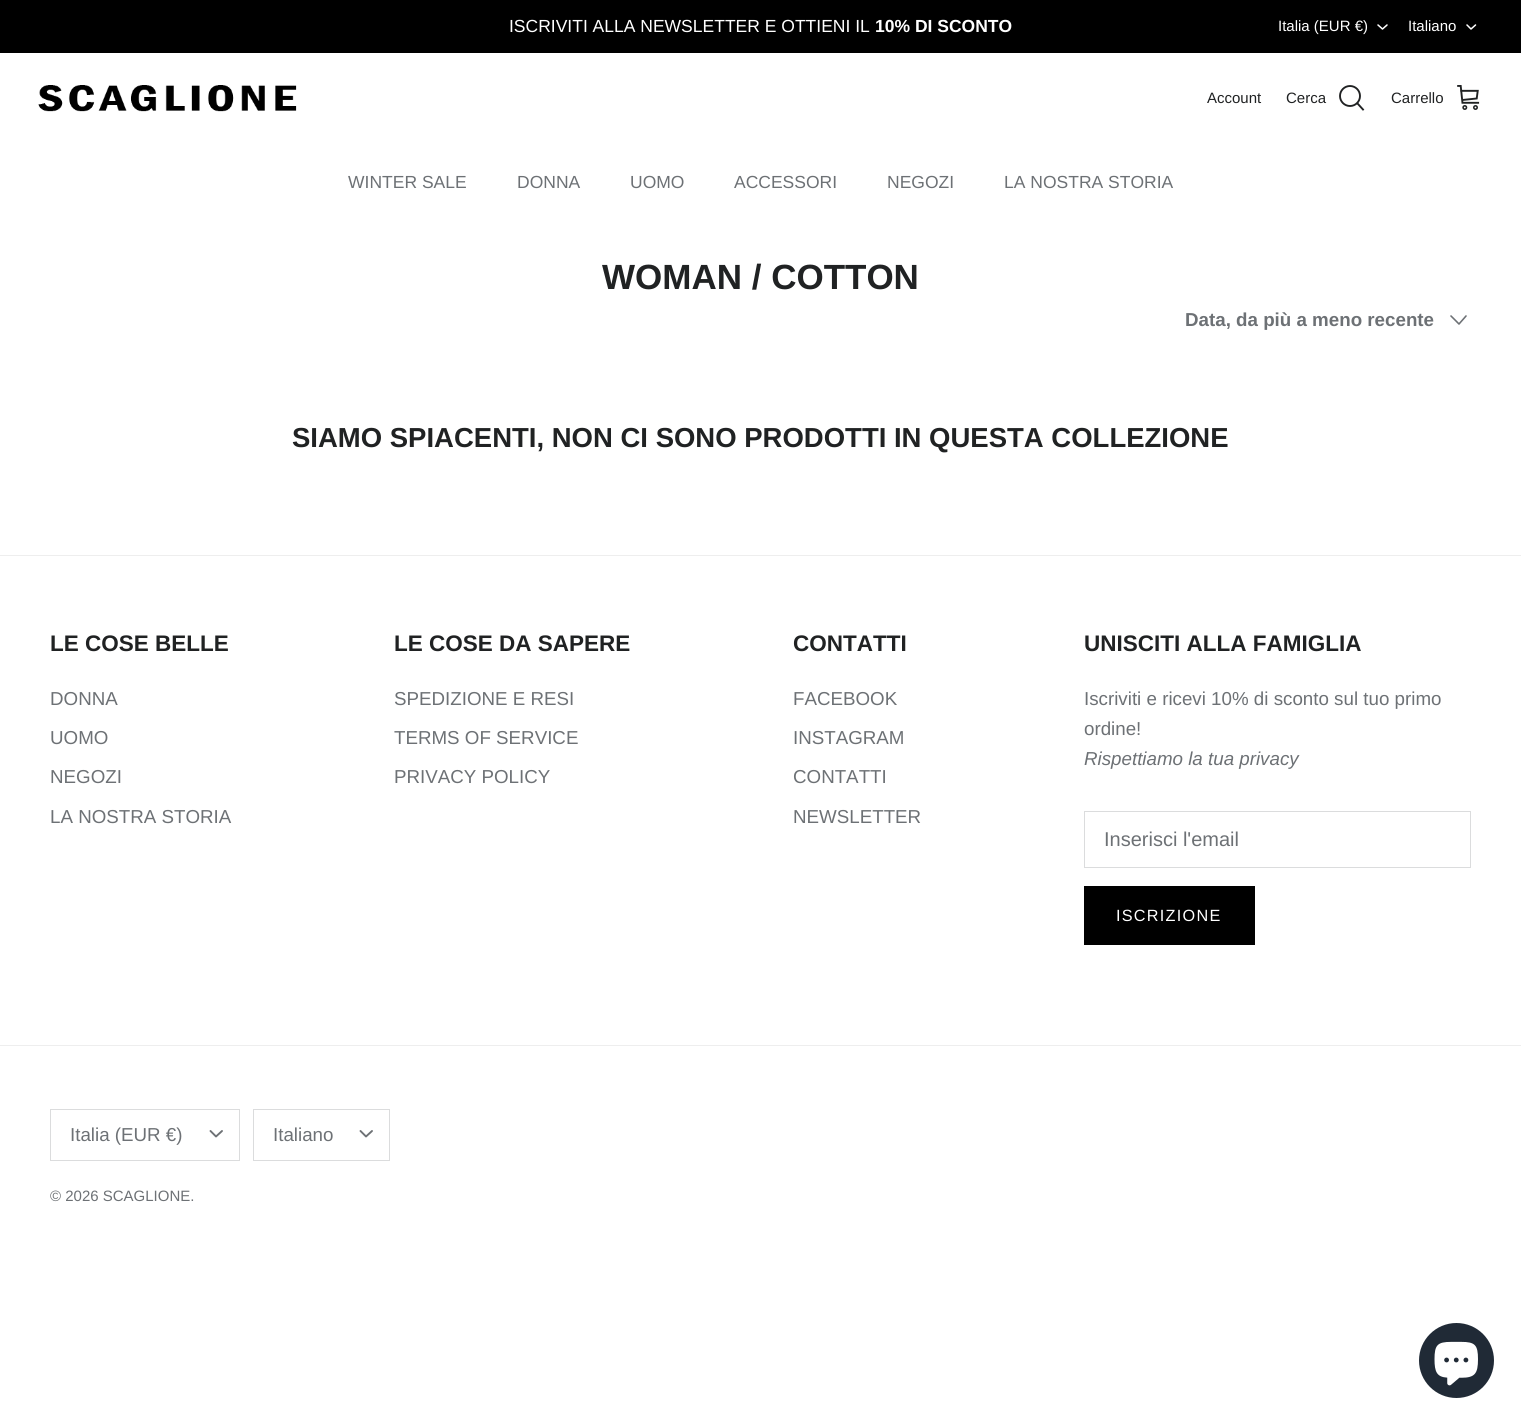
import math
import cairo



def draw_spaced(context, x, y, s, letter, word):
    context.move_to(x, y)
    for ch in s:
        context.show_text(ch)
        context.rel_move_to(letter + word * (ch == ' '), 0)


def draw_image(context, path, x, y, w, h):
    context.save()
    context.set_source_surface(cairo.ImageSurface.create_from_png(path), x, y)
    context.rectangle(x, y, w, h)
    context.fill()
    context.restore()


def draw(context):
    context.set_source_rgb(1, 1, 1)
    context.paint()
    context.set_source_rgb(0, 0, 0)
    context.rectangle(0, 0, 1521, 53)
    context.fill()
    context.new_path()
    context.move_to(1378, 25)
    context.line_to(1382.5, 29)
    context.line_to(1387, 25)
    context.set_source_rgb(1, 1, 1)
    context.set_line_width(1.5)
    context.set_line_cap(cairo.LineCap.ROUND)
    context.set_line_join(cairo.LineJoin.ROUND)
    context.stroke()
    context.new_path()
    context.move_to(1467, 25)
    context.line_to(1471, 29)
    context.line_to(1475.5, 25)
    context.stroke()
    draw_image(context, "images/1.png", 38, 85, 259, 27)
    context.arc(1350, 96, 10, 0, 2 * math.pi)
    context.set_source_rgb(32 / 255, 34 / 255, 35 / 255)
    context.set_line_width(1.9)
    context.set_line_cap(cairo.LineCap.BUTT)
    context.set_line_join(cairo.LineJoin.MITER)
    context.stroke()
    context.new_path()
    context.move_to(1357.5, 103.5)
    context.line_to(1363, 109.5)
    context.set_line_cap(cairo.LineCap.SQUARE)
    context.stroke()
    draw_image(context, "images/2.png", 1457, 85, 23, 25)
    context.new_path()
    context.move_to(1451, 316)
    context.line_to(1459, 324)
    context.line_to(1466, 316)
    context.set_source_rgb(109 / 255, 113 / 255, 117 / 255)
    context.set_line_width(1.6)
    context.set_line_cap(cairo.LineCap.ROUND)
    context.set_line_join(cairo.LineJoin.ROUND)
    context.stroke()
    context.set_source_rgb(238 / 255, 238 / 255, 238 / 255)
    context.rectangle(0, 555, 1521, 1)
    context.fill()
    context.rectangle(1084.5, 811.5, 386, 56)
    context.set_source_rgb(219 / 255, 220 / 255, 221 / 255)
    context.set_line_width(1)
    context.set_line_cap(cairo.LineCap.BUTT)
    context.set_line_join(cairo.LineJoin.MITER)
    context.stroke()
    context.set_source_rgb(0, 0, 0)
    context.rectangle(1084, 886, 171, 59)
    context.fill()
    context.set_source_rgb(238 / 255, 238 / 255, 238 / 255)
    context.rectangle(0, 1045, 1521, 1)
    context.fill()
    context.rectangle(50.5, 1109.5, 189, 51)
    context.set_source_rgb(219 / 255, 220 / 255, 221 / 255)
    context.stroke()
    context.new_path()
    context.move_to(210.5, 1131)
    context.line_to(216, 1136.5)
    context.line_to(222, 1131)
    context.set_source_rgb(109 / 255, 113 / 255, 117 / 255)
    context.set_line_width(1.9)
    context.set_line_cap(cairo.LineCap.ROUND)
    context.set_line_join(cairo.LineJoin.ROUND)
    context.stroke()
    context.rectangle(253.5, 1109.5, 136, 51)
    context.set_source_rgb(219 / 255, 220 / 255, 221 / 255)
    context.set_line_width(1)
    context.set_line_cap(cairo.LineCap.BUTT)
    context.set_line_join(cairo.LineJoin.MITER)
    context.stroke()
    context.new_path()
    context.move_to(360.5, 1131)
    context.line_to(366, 1136.5)
    context.line_to(372, 1131)
    context.set_source_rgb(109 / 255, 113 / 255, 117 / 255)
    context.set_line_width(1.9)
    context.set_line_cap(cairo.LineCap.ROUND)
    context.set_line_join(cairo.LineJoin.ROUND)
    context.stroke()
    context.set_source_rgb(32 / 255, 42 / 255, 54 / 255)
    context.arc(1456.5, 1360.5, 37.5, 0, 2 * math.pi)
    context.fill()
    draw_image(context, "images/3.png", 1434, 1341, 44, 45)
    context.select_font_face("Liberation Sans")
    context.set_font_size(17.5)
    context.set_source_rgb(1, 1, 1)
    context.move_to(509, 32)
    context.show_text("ISCRIVITI ALLA NEWSLETTER E OTTIENI IL")
    context.select_font_face("Liberation Sans", cairo.FontSlant.NORMAL, cairo.FontWeight.BOLD)
    context.move_to(875, 32)
    context.show_text("10% DI SCONTO")
    context.select_font_face("Liberation Sans")
    context.set_font_size(15)
    context.move_to(1278, 31)
    context.show_text("Italia (EUR €)")
    context.move_to(1408, 31)
    context.show_text("Italiano")
    context.set_source_rgb(32 / 255, 34 / 255, 35 / 255)
    context.move_to(1207, 103)
    context.show_text("Account")
    context.move_to(1286, 103)
    context.show_text("Cerca")
    context.move_to(1391, 103)
    context.show_text("Carrello")
    context.set_font_size(17.5)
    context.set_source_rgb(109 / 255, 113 / 255, 117 / 255)
    context.move_to(348, 188)
    context.show_text("WINTER SALE")
    context.move_to(517, 188)
    context.show_text("DONNA")
    context.move_to(630, 188)
    context.show_text("UOMO")
    context.move_to(734, 188)
    context.show_text("ACCESSORI")
    context.move_to(887, 188)
    context.show_text("NEGOZI")
    context.move_to(1004, 188)
    context.show_text("LA NOSTRA STORIA")
    context.select_font_face("Liberation Sans", cairo.FontSlant.NORMAL, cairo.FontWeight.BOLD)
    context.set_font_size(35)
    context.set_source_rgb(32 / 255, 34 / 255, 35 / 255)
    context.move_to(602, 289)
    context.show_text("WOMAN / COTTON")
    context.set_font_size(18.75)
    context.set_source_rgb(109 / 255, 113 / 255, 117 / 255)
    context.move_to(1185, 326)
    context.show_text("Data, da più a meno recente")
    context.set_font_size(27.5)
    context.set_source_rgb(32 / 255, 34 / 255, 35 / 255)
    context.move_to(292, 447)
    context.show_text("SIAMO SPIACENTI, NON CI SONO PRODOTTI IN QUESTA COLLEZIONE")
    context.set_font_size(22.5)
    context.move_to(50, 651)
    context.show_text("LE COSE BELLE")
    context.select_font_face("Liberation Sans")
    context.set_font_size(18.75)
    context.set_source_rgb(109 / 255, 113 / 255, 117 / 255)
    context.move_to(50, 705)
    context.show_text("DONNA")
    context.move_to(50, 744)
    context.show_text("UOMO")
    context.move_to(50, 783)
    context.show_text("NEGOZI")
    context.move_to(50, 823)
    context.show_text("LA NOSTRA STORIA")
    context.select_font_face("Liberation Sans", cairo.FontSlant.NORMAL, cairo.FontWeight.BOLD)
    context.set_font_size(22.5)
    context.set_source_rgb(32 / 255, 34 / 255, 35 / 255)
    context.move_to(394, 651)
    context.show_text("LE COSE DA SAPERE")
    context.select_font_face("Liberation Sans")
    context.set_font_size(18.75)
    context.set_source_rgb(109 / 255, 113 / 255, 117 / 255)
    context.move_to(394, 705)
    context.show_text("SPEDIZIONE E RESI")
    context.move_to(394, 744)
    context.show_text("TERMS OF SERVICE")
    context.move_to(394, 783)
    context.show_text("PRIVACY POLICY")
    context.select_font_face("Liberation Sans", cairo.FontSlant.NORMAL, cairo.FontWeight.BOLD)
    context.set_font_size(22.5)
    context.set_source_rgb(32 / 255, 34 / 255, 35 / 255)
    context.move_to(793, 651)
    context.show_text("CONTATTI")
    context.select_font_face("Liberation Sans")
    context.set_font_size(18.75)
    context.set_source_rgb(109 / 255, 113 / 255, 117 / 255)
    context.move_to(793, 705)
    context.show_text("FACEBOOK")
    context.move_to(793, 744)
    context.show_text("INSTAGRAM")
    context.move_to(793, 783)
    context.show_text("CONTATTI")
    context.move_to(793, 823)
    context.show_text("NEWSLETTER")
    context.select_font_face("Liberation Sans", cairo.FontSlant.NORMAL, cairo.FontWeight.BOLD)
    context.set_font_size(22.5)
    context.set_source_rgb(32 / 255, 34 / 255, 35 / 255)
    context.move_to(1084, 651)
    context.show_text("UNISCITI ALLA FAMIGLIA")
    context.select_font_face("Liberation Sans")
    context.set_font_size(18.75)
    context.set_source_rgb(109 / 255, 113 / 255, 117 / 255)
    context.move_to(1084, 705)
    context.show_text("Iscriviti e ricevi 10% di sconto sul tuo primo")
    context.move_to(1084, 735)
    context.show_text("ordine!")
    context.select_font_face("Liberation Sans", cairo.FontSlant.ITALIC)
    context.move_to(1084, 765)
    context.show_text("Rispettiamo la tua privacy")
    context.select_font_face("Liberation Sans")
    context.set_font_size(20)
    context.move_to(1104, 846)
    context.show_text("Inserisci l'email")
    context.set_font_size(16.25)
    context.set_source_rgb(1, 1, 1)
    draw_spaced(context, 1116, 921, "ISCRIZIONE", 1.25, 0)
    context.set_font_size(18.75)
    context.set_source_rgb(109 / 255, 113 / 255, 117 / 255)
    context.move_to(70, 1141)
    context.show_text("Italia (EUR €)")
    context.move_to(273, 1141)
    context.show_text("Italiano")
    context.set_font_size(15)
    context.move_to(50, 1201)
    context.show_text("© 2026 SCAGLIONE.")


surface = cairo.ImageSurface(cairo.Format.RGB24, 1521, 1423)
context = cairo.Context(surface)
options = cairo.FontOptions()
options.set_hint_metrics(cairo.HintMetrics.OFF)
options.set_hint_style(cairo.HintStyle.NONE)
context.set_font_options(options)
context.set_miter_limit(4)
draw(context)
surface.write_to_png("out.png")
